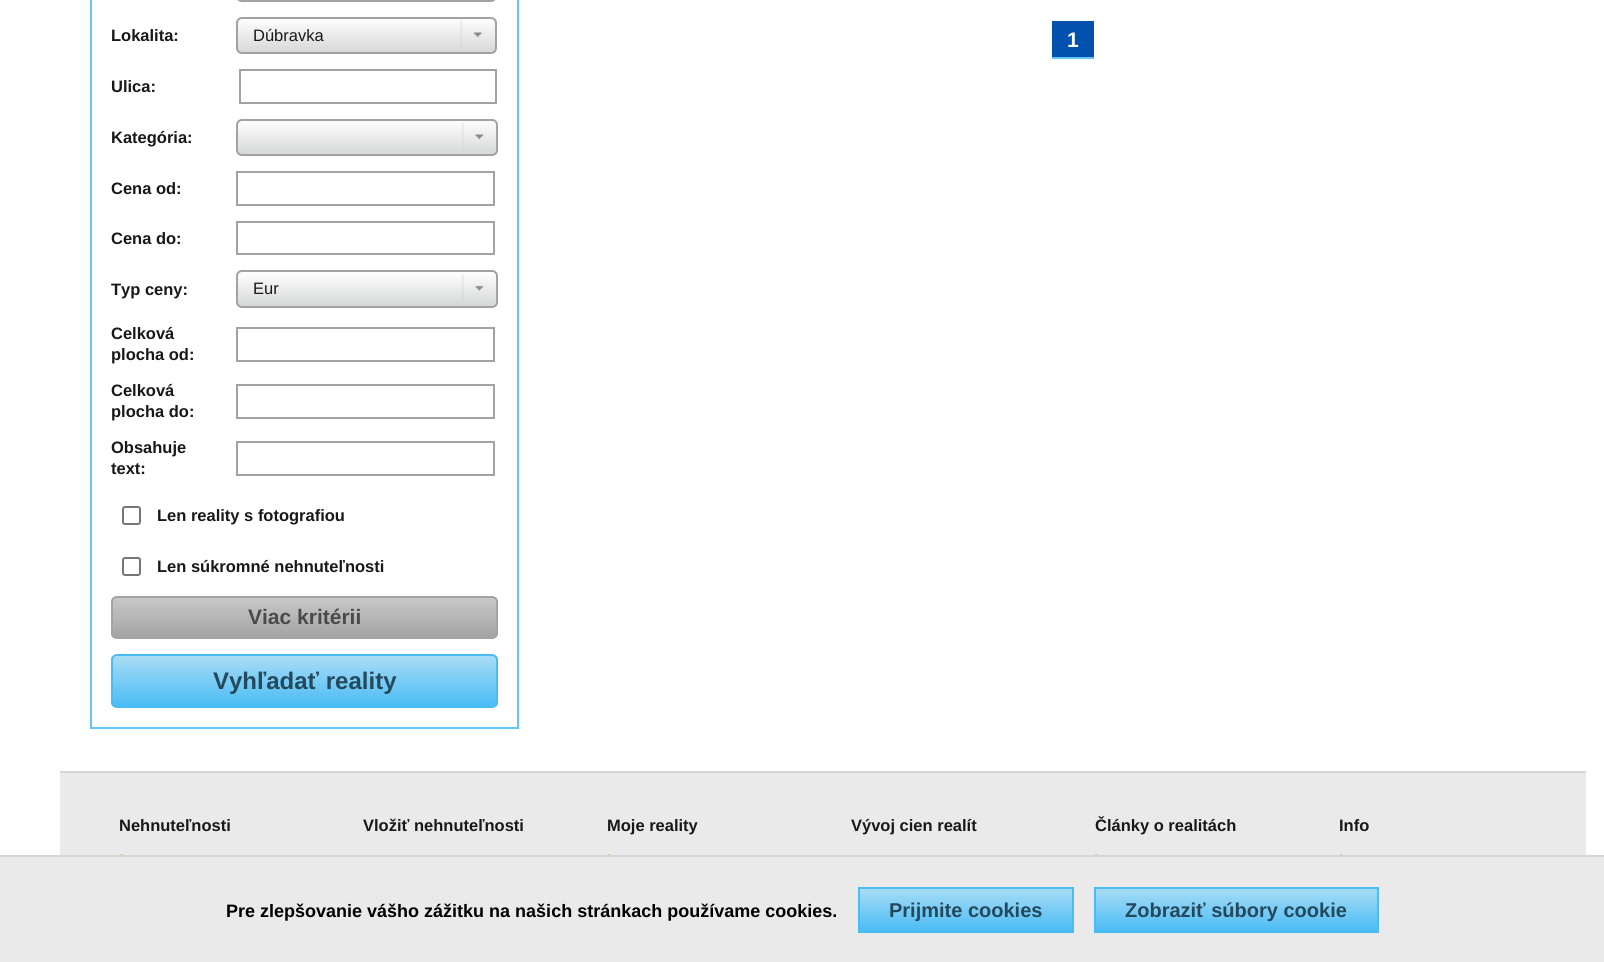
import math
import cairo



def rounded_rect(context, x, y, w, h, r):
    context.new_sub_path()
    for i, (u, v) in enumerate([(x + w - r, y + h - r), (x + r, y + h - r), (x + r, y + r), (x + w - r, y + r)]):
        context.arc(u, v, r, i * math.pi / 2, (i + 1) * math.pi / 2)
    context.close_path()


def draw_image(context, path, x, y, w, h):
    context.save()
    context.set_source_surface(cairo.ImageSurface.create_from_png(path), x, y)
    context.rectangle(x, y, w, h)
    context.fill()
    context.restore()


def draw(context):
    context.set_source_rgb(1, 1, 1)
    context.paint()
    context.rectangle(91, -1, 427, 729)
    context.set_source_rgb(101 / 255, 197 / 255, 246 / 255)
    context.stroke()
    rounded_rect(context, 237, -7, 259, 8, 5)
    context.set_source_rgb(162 / 255, 162 / 255, 163 / 255)
    context.stroke()
    context.save()
    rounded_rect(context, 236, 17, 261, 37, 6)
    context.clip()
    gradient = cairo.LinearGradient(366, 18, 366, 53)
    gradient.add_color_stop_rgba(0, 1, 1, 1, 1)
    gradient.add_color_stop_rgba(1, 214 / 255, 215 / 255, 216 / 255, 1)
    context.set_source(gradient)
    context.rectangle(236, 18, 261, 35)
    context.fill()
    context.restore()
    rounded_rect(context, 237, 18, 259, 35, 5)
    context.stroke()
    draw_image(context, "images/1.png", 460, 20, 22, 29)
    context.rectangle(240, 70, 256, 33)
    context.stroke()
    context.save()
    rounded_rect(context, 236, 119, 262, 37, 6)
    context.clip()
    gradient = cairo.LinearGradient(367, 120, 367, 155)
    gradient.add_color_stop_rgba(0, 1, 1, 1, 1)
    gradient.add_color_stop_rgba(1, 214 / 255, 215 / 255, 216 / 255, 1)
    context.set_source(gradient)
    context.rectangle(236, 120, 262, 35)
    context.fill()
    context.restore()
    rounded_rect(context, 237, 120, 260, 35, 5)
    context.stroke()
    draw_image(context, "images/2.png", 462, 122, 22, 29)
    context.rectangle(237, 172, 257, 33)
    context.stroke()
    context.rectangle(237, 222, 257, 32)
    context.stroke()
    context.save()
    rounded_rect(context, 236, 270, 262, 38, 6)
    context.clip()
    gradient = cairo.LinearGradient(367, 272, 367, 306)
    gradient.add_color_stop_rgba(0, 1, 1, 1, 1)
    gradient.add_color_stop_rgba(1, 214 / 255, 215 / 255, 216 / 255, 1)
    context.set_source(gradient)
    context.rectangle(236, 272, 262, 34)
    context.fill()
    context.restore()
    rounded_rect(context, 237, 271, 260, 36, 5)
    context.stroke()
    draw_image(context, "images/3.png", 462, 274, 22, 28)
    context.rectangle(237, 328, 257, 33)
    context.stroke()
    context.rectangle(237, 385, 257, 33)
    context.stroke()
    context.rectangle(237, 442, 257, 33)
    context.stroke()
    rounded_rect(context, 123, 507, 17, 17, 2)
    context.set_source_rgb(118 / 255, 118 / 255, 118 / 255)
    context.stroke()
    rounded_rect(context, 123, 558, 17, 17, 2)
    context.stroke()
    context.save()
    rounded_rect(context, 111, 596, 387, 43, 6)
    context.clip()
    gradient = cairo.LinearGradient(305, 597, 305, 638)
    gradient.add_color_stop_rgba(0, 201 / 255, 201 / 255, 201 / 255, 1)
    gradient.add_color_stop_rgba(1, 163 / 255, 163 / 255, 163 / 255, 1)
    context.set_source(gradient)
    context.rectangle(111, 597, 387, 41)
    context.fill()
    context.restore()
    rounded_rect(context, 112, 597, 385, 41, 5)
    context.set_source_rgb(163 / 255, 163 / 255, 163 / 255)
    context.stroke()
    context.save()
    rounded_rect(context, 111, 654, 387, 54, 6)
    context.clip()
    gradient = cairo.LinearGradient(305, 656, 305, 707)
    gradient.add_color_stop_rgba(0, 169 / 255, 220 / 255, 245 / 255, 1)
    gradient.add_color_stop_rgba(1, 73 / 255, 188 / 255, 245 / 255, 1)
    context.set_source(gradient)
    context.rectangle(111, 656, 387, 51)
    context.fill()
    context.restore()
    rounded_rect(context, 112, 655, 385, 52, 5)
    context.set_source_rgb(73 / 255, 188 / 255, 245 / 255)
    context.stroke()
    context.set_source_rgb(0, 82 / 255, 174 / 255)
    context.rectangle(1052, 21, 42, 36)
    context.fill()
    context.set_source_rgb(101 / 255, 197 / 255, 246 / 255)
    context.rectangle(1052, 57, 42, 2)
    context.fill()
    context.set_source_rgb(234 / 255, 234 / 255, 235 / 255)
    context.rectangle(60, 773, 1526, 82)
    context.fill()
    context.set_source_rgb(213 / 255, 214 / 255, 215 / 255)
    context.rectangle(60, 771, 1526, 2)
    context.fill()
    draw_image(context, "images/4.png", 120, 854, 4, 1)
    draw_image(context, "images/5.png", 607, 854, 4, 1)
    draw_image(context, "images/4.png", 1095, 854, 4, 1)
    draw_image(context, "images/5.png", 1339, 854, 4, 1)
    context.set_source_rgb(234 / 255, 234 / 255, 235 / 255)
    context.rectangle(0, 857, 1604, 105)
    context.fill()
    context.set_source_rgb(213 / 255, 214 / 255, 215 / 255)
    context.rectangle(0, 855, 1604, 2)
    context.fill()
    gradient = cairo.LinearGradient(966, 888, 966, 932)
    gradient.add_color_stop_rgba(0, 169 / 255, 220 / 255, 245 / 255, 1)
    gradient.add_color_stop_rgba(1, 73 / 255, 188 / 255, 245 / 255, 1)
    context.set_source(gradient)
    context.rectangle(860, 889, 212, 42)
    context.fill()
    context.rectangle(859, 888, 214, 44)
    context.set_source_rgb(73 / 255, 188 / 255, 245 / 255)
    context.stroke()
    gradient = cairo.LinearGradient(1236, 888, 1236, 932)
    gradient.add_color_stop_rgba(0, 169 / 255, 220 / 255, 245 / 255, 1)
    gradient.add_color_stop_rgba(1, 73 / 255, 188 / 255, 245 / 255, 1)
    context.set_source(gradient)
    context.rectangle(1096, 889, 281, 42)
    context.fill()
    context.rectangle(1095, 888, 283, 44)
    context.set_source_rgb(73 / 255, 188 / 255, 245 / 255)
    context.stroke()
    context.select_font_face("Liberation Sans", cairo.FontSlant.NORMAL, cairo.FontWeight.BOLD)
    context.set_font_size(16.5)
    context.set_source_rgb(24 / 255, 24 / 255, 24 / 255)
    context.move_to(111, 41)
    context.show_text("Lokalita:")
    context.select_font_face("Liberation Sans")
    context.move_to(253, 41)
    context.show_text("Dúbravka")
    context.select_font_face("Liberation Sans", cairo.FontSlant.NORMAL, cairo.FontWeight.BOLD)
    context.move_to(111, 92)
    context.show_text("Ulica:")
    context.move_to(111, 143)
    context.show_text("Kategória:")
    context.move_to(111, 194)
    context.show_text("Cena od:")
    context.move_to(111, 244)
    context.show_text("Cena do:")
    context.move_to(111, 295)
    context.show_text("Typ ceny:")
    context.select_font_face("Liberation Sans")
    context.move_to(253, 294)
    context.show_text("Eur")
    context.select_font_face("Liberation Sans", cairo.FontSlant.NORMAL, cairo.FontWeight.BOLD)
    context.move_to(111, 339)
    context.show_text("Celková")
    context.move_to(111, 360)
    context.show_text("plocha od:")
    context.move_to(111, 396)
    context.show_text("Celková")
    context.move_to(111, 417)
    context.show_text("plocha do:")
    context.move_to(111, 453)
    context.show_text("Obsahuje")
    context.move_to(111, 474)
    context.show_text("text:")
    context.move_to(157, 521)
    context.show_text("Len reality s fotografiou")
    context.move_to(157, 572)
    context.show_text("Len súkromné nehnuteľnosti")
    context.set_font_size(21)
    context.set_source_rgb(74 / 255, 74 / 255, 74 / 255)
    context.move_to(248, 624)
    context.show_text("Viac kritérii")
    context.set_font_size(24)
    context.set_source_rgb(37 / 255, 73 / 255, 92 / 255)
    context.move_to(213, 689)
    context.show_text("Vyhľadať reality")
    context.set_font_size(21)
    context.set_source_rgb(1, 1, 1)
    context.move_to(1067, 47)
    context.show_text("1")
    context.set_font_size(16.5)
    context.set_source_rgb(24 / 255, 24 / 255, 24 / 255)
    context.move_to(119, 831)
    context.show_text("Nehnuteľnosti")
    context.move_to(363, 831)
    context.show_text("Vložiť nehnuteľnosti")
    context.move_to(607, 831)
    context.show_text("Moje reality")
    context.move_to(851, 831)
    context.show_text("Vývoj cien realít")
    context.move_to(1095, 831)
    context.show_text("Články o realitách")
    context.move_to(1339, 831)
    context.show_text("Info")
    context.set_font_size(18)
    context.set_source_rgb(0, 0, 0)
    context.move_to(226, 917)
    context.show_text("Pre zlepšovanie vášho zážitku na našich stránkach používame cookies.")
    context.set_font_size(20)
    context.set_source_rgb(37 / 255, 73 / 255, 92 / 255)
    context.move_to(889, 917)
    context.show_text("Prijmite cookies")
    context.move_to(1125, 917)
    context.show_text("Zobraziť súbory cookie")


surface = cairo.ImageSurface(cairo.Format.RGB24, 1604, 962)
context = cairo.Context(surface)
options = cairo.FontOptions()
options.set_hint_metrics(cairo.HintMetrics.OFF)
options.set_hint_style(cairo.HintStyle.NONE)
context.set_font_options(options)
context.set_miter_limit(4)
draw(context)
surface.write_to_png("out.png")
